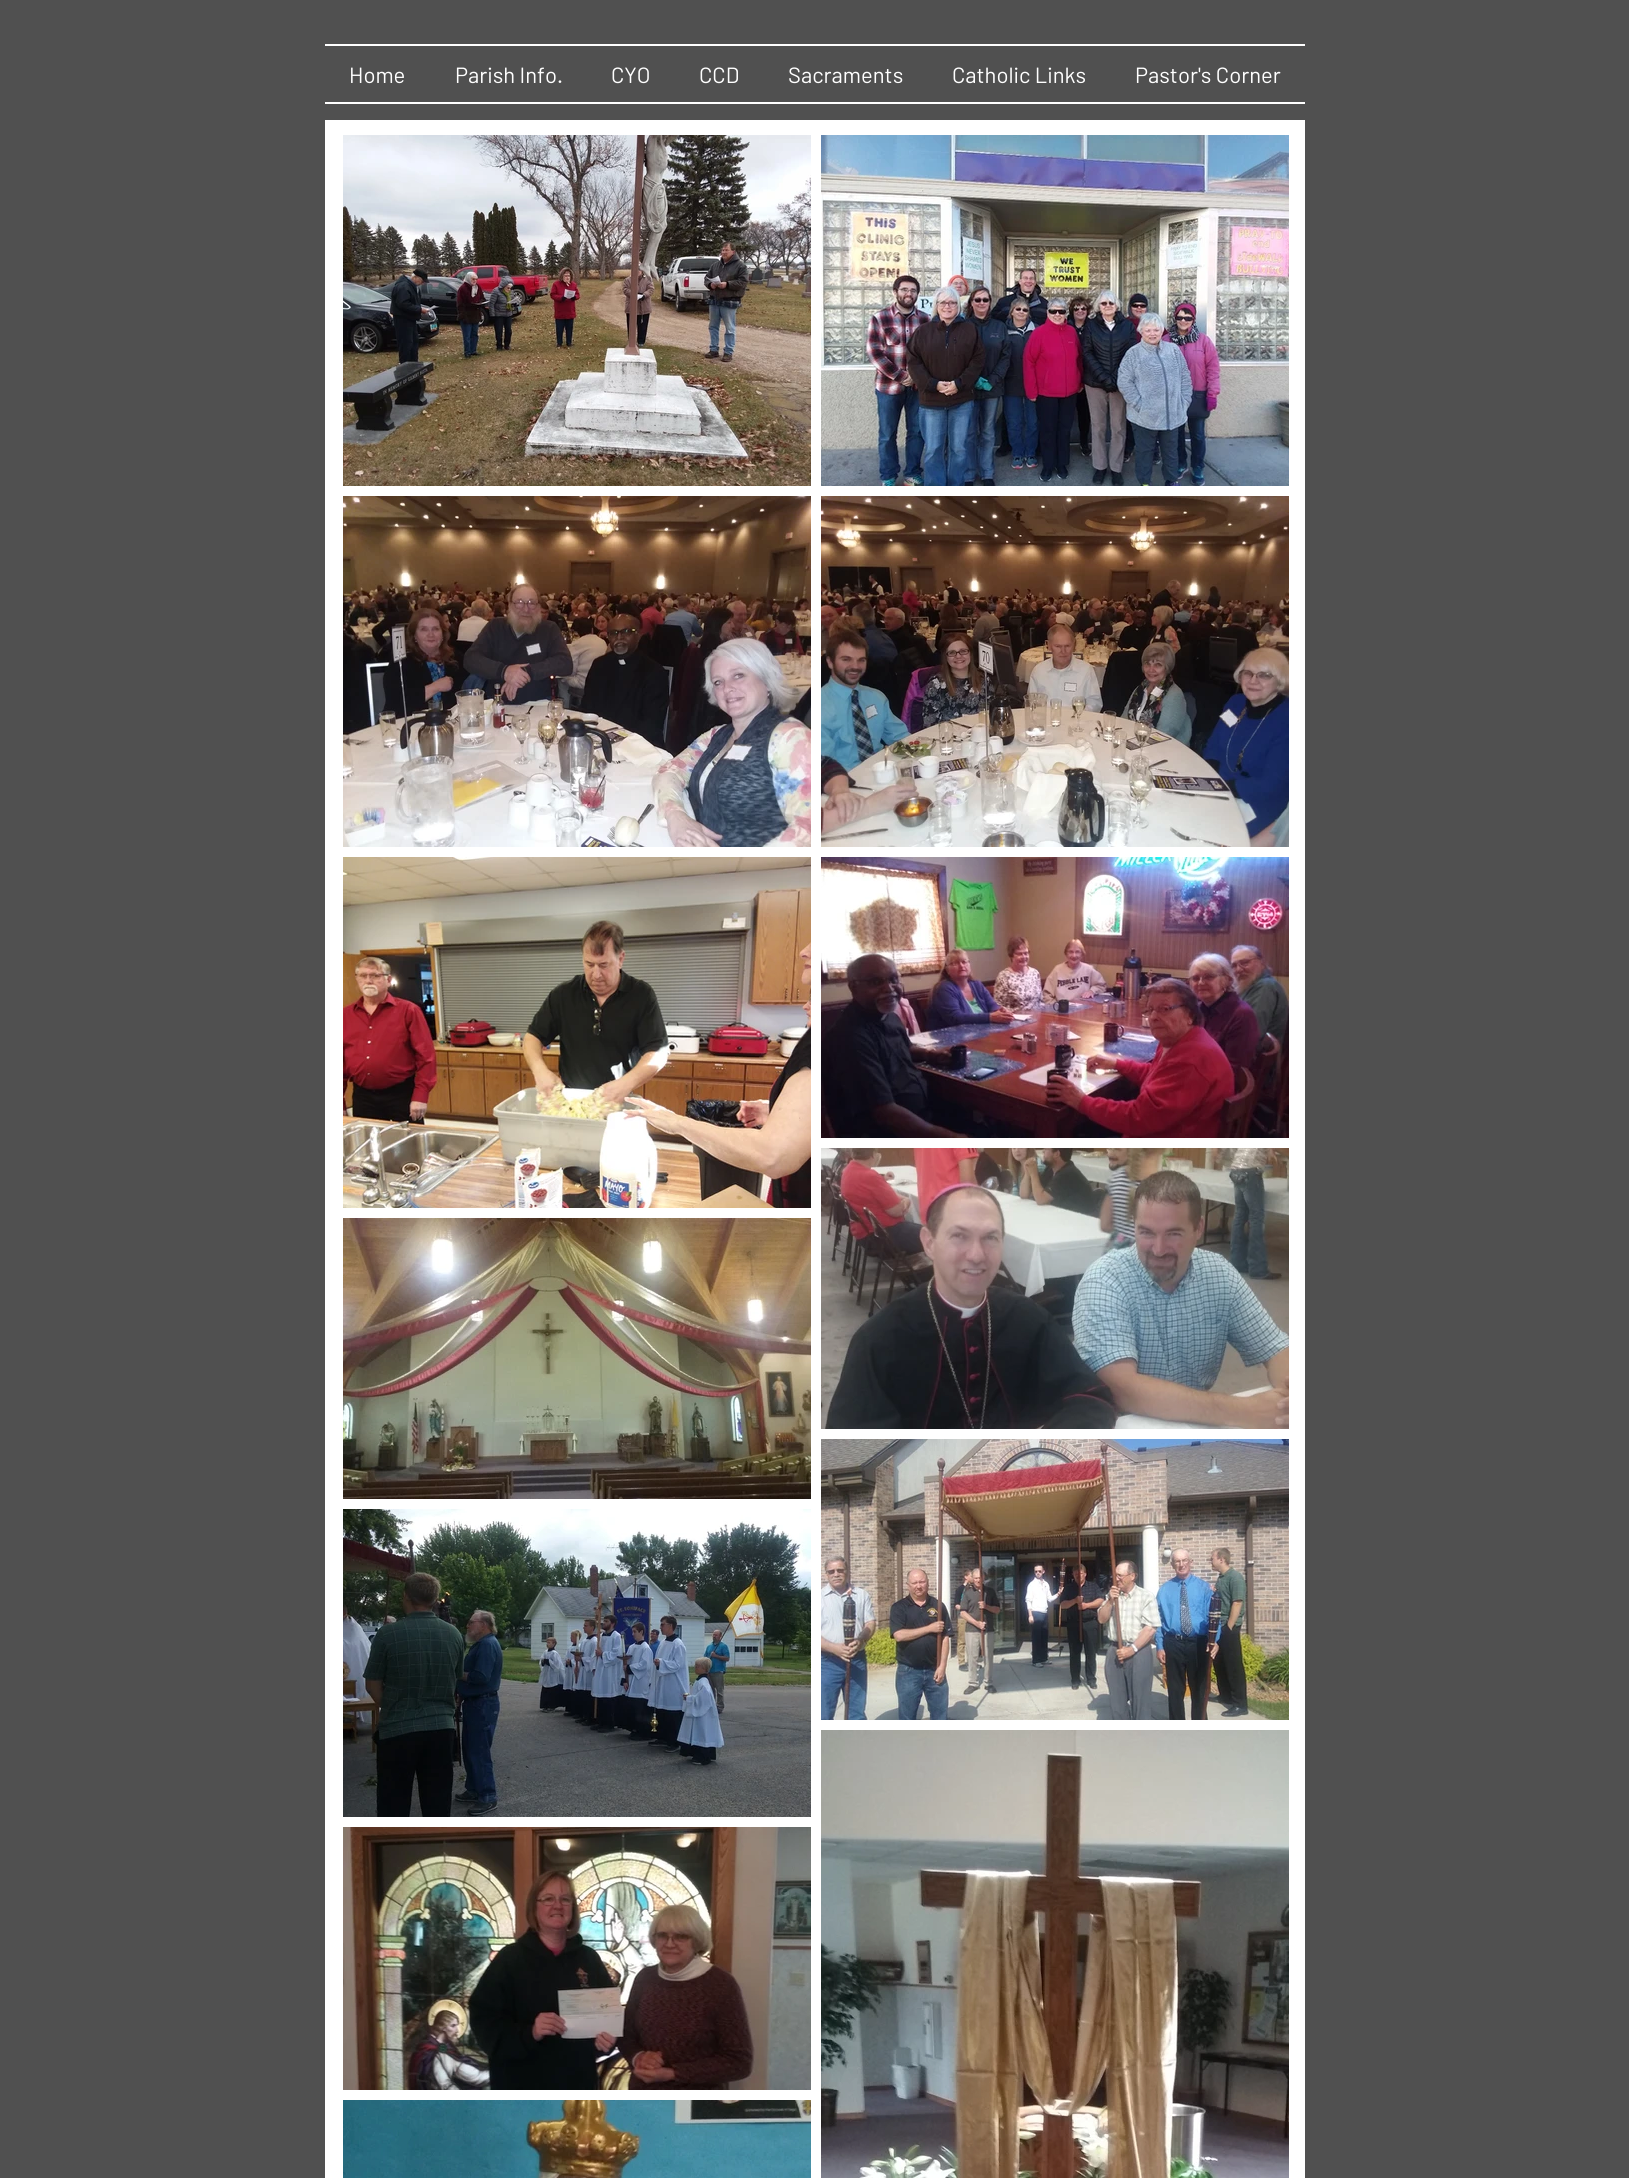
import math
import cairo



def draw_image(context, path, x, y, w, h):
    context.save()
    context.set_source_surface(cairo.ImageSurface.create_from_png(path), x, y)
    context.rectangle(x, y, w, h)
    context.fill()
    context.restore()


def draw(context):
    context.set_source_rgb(80 / 255, 80 / 255, 80 / 255)
    context.paint()
    context.set_source_rgb(1, 1, 1)
    context.rectangle(325, 44, 980, 2)
    context.fill()
    context.rectangle(325, 102, 980, 2)
    context.fill()
    context.rectangle(325, 120, 980, 2058)
    context.fill()
    draw_image(context, "images/1.png", 343, 135, 468, 351)
    draw_image(context, "images/2.png", 821, 135, 468, 351)
    draw_image(context, "images/3.png", 343, 496, 468, 351)
    draw_image(context, "images/4.png", 821, 496, 468, 351)
    draw_image(context, "images/5.png", 343, 857, 468, 351)
    draw_image(context, "images/6.png", 821, 857, 468, 281)
    draw_image(context, "images/7.png", 343, 1218, 468, 281)
    draw_image(context, "images/8.png", 821, 1148, 468, 281)
    draw_image(context, "images/9.png", 343, 1509, 468, 308)
    draw_image(context, "images/10.png", 821, 1439, 468, 281)
    draw_image(context, "images/11.png", 343, 1827, 468, 263)
    draw_image(context, "images/12.png", 821, 1730, 468, 448)
    draw_image(context, "images/13.png", 343, 2100, 468, 78)
    context.select_font_face("Barlow")
    context.set_font_size(22)
    context.move_to(349, 83)
    context.show_text("Home")
    context.move_to(455, 83)
    context.show_text("Parish Info.")
    context.move_to(611, 83)
    context.show_text("CYO")
    context.move_to(699, 83)
    context.show_text("CCD")
    context.move_to(788, 83)
    context.show_text("Sacraments")
    context.move_to(952, 83)
    context.show_text("Catholic Links")
    context.move_to(1135, 83)
    context.show_text("Pastor's Corner")


surface = cairo.ImageSurface(cairo.Format.RGB24, 1629, 2178)
context = cairo.Context(surface)
options = cairo.FontOptions()
options.set_hint_metrics(cairo.HintMetrics.OFF)
options.set_hint_style(cairo.HintStyle.NONE)
context.set_font_options(options)
context.set_miter_limit(4)
draw(context)
surface.write_to_png("out.png")
